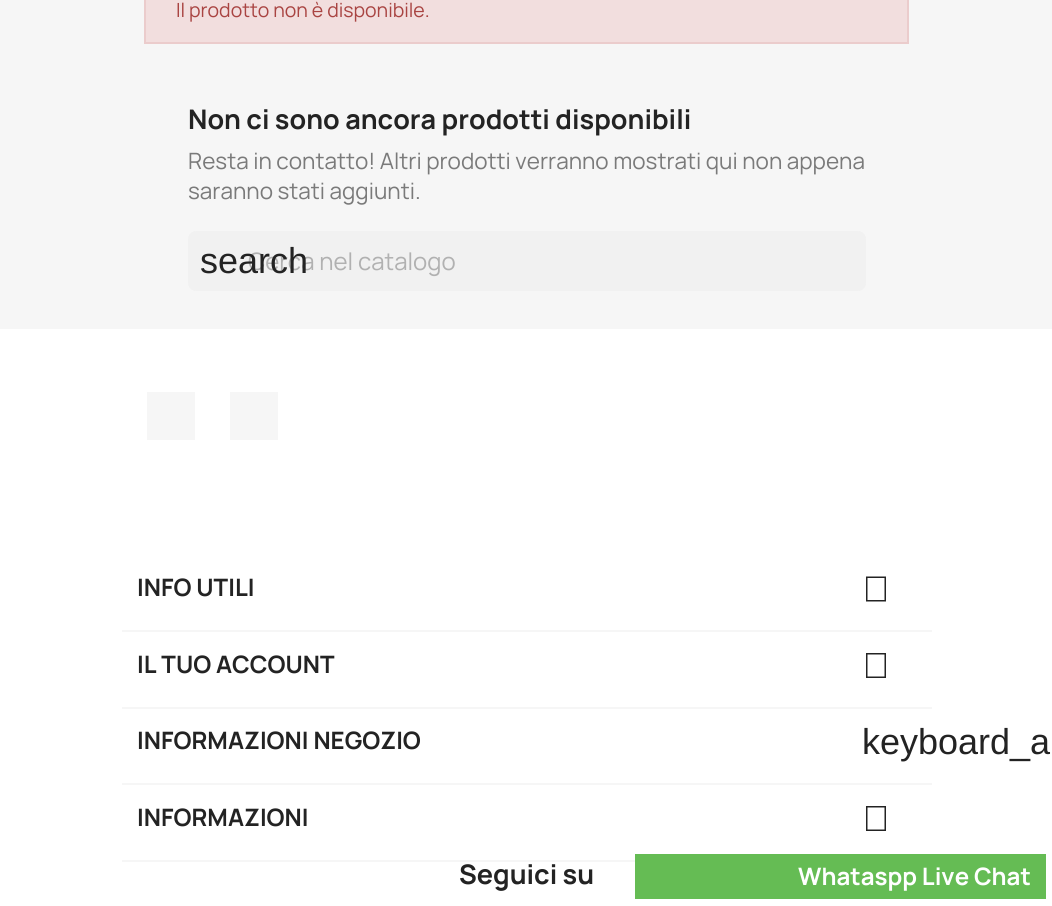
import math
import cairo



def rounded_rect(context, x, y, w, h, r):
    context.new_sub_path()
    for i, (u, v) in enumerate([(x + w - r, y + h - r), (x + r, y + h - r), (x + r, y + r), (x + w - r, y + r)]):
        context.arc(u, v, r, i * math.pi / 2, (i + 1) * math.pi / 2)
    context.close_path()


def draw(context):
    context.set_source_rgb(1, 1, 1)
    context.paint()
    context.set_source_rgb(246 / 255, 246 / 255, 246 / 255)
    context.rectangle(0, 0, 1052, 329)
    context.fill()
    context.set_source_rgb(242 / 255, 222 / 255, 222 / 255)
    context.rectangle(145, -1, 763, 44)
    context.fill_preserve()
    context.set_source_rgb(235 / 255, 204 / 255, 204 / 255)
    context.stroke()
    context.set_source_rgb(241 / 255, 241 / 255, 241 / 255)
    rounded_rect(context, 188, 231, 678, 60, 8)
    context.fill()
    context.set_source_rgb(246 / 255, 246 / 255, 246 / 255)
    context.rectangle(147, 392, 48, 48)
    context.fill()
    context.rectangle(230, 392, 48, 48)
    context.fill()
    context.rectangle(122, 630, 810, 2)
    context.fill()
    context.set_source_rgb(35 / 255, 35 / 255, 35 / 255)
    context.new_path()
    context.move_to(866, 576.5)
    context.line_to(886, 576.5)
    context.line_to(886, 601.5)
    context.line_to(866, 601.5)
    context.close_path()
    context.move_to(867.5, 578)
    context.line_to(867.5, 600)
    context.line_to(884.5, 600)
    context.line_to(884.5, 578)
    context.close_path()
    context.fill()
    context.set_source_rgb(246 / 255, 246 / 255, 246 / 255)
    context.rectangle(122, 707, 810, 2)
    context.fill()
    context.set_source_rgb(35 / 255, 35 / 255, 35 / 255)
    context.new_path()
    context.move_to(866, 653)
    context.line_to(886, 653)
    context.line_to(886, 678)
    context.line_to(866, 678)
    context.close_path()
    context.move_to(867.5, 654.5)
    context.line_to(867.5, 676.5)
    context.line_to(884.5, 676.5)
    context.line_to(884.5, 654.5)
    context.close_path()
    context.fill()
    context.set_source_rgb(246 / 255, 246 / 255, 246 / 255)
    context.rectangle(122, 783, 810, 2)
    context.fill()
    context.rectangle(122, 860, 513, 2)
    context.fill()
    context.set_source_rgb(35 / 255, 35 / 255, 35 / 255)
    context.new_path()
    context.move_to(866, 806)
    context.line_to(886, 806)
    context.line_to(886, 831)
    context.line_to(866, 831)
    context.close_path()
    context.move_to(867.5, 807.5)
    context.line_to(867.5, 829.5)
    context.line_to(884.5, 829.5)
    context.line_to(884.5, 807.5)
    context.close_path()
    context.fill()
    context.set_source_rgb(101 / 255, 188 / 255, 84 / 255)
    context.rectangle(635, 854, 411, 45)
    context.fill()
    context.select_font_face("Manrope")
    context.set_font_size(19.5)
    context.set_source_rgb(169 / 255, 68 / 255, 66 / 255)
    context.move_to(176, 17)
    context.show_text("Il prodotto non è disponibile.")
    context.select_font_face("Manrope", cairo.FontSlant.NORMAL, cairo.FontWeight.BOLD)
    context.set_font_size(27)
    context.set_source_rgb(35 / 255, 35 / 255, 35 / 255)
    context.move_to(188, 129)
    context.show_text("Non ci sono ancora prodotti disponibili")
    context.select_font_face("Manrope")
    context.set_font_size(22.5)
    context.set_source_rgb(122 / 255, 122 / 255, 122 / 255)
    context.move_to(188, 169)
    context.show_text("Resta in contatto! Altri prodotti verranno mostrati qui non appena")
    context.move_to(188, 199)
    context.show_text("saranno stati aggiunti.")
    context.set_font_size(24)
    context.set_source_rgb(177 / 255, 177 / 255, 177 / 255)
    context.move_to(248, 270)
    context.show_text("Cerca nel catalogo")
    context.select_font_face("Liberation Sans")
    context.set_font_size(36)
    context.set_source_rgb(35 / 255, 35 / 255, 35 / 255)
    context.move_to(200, 273)
    context.show_text("search")
    context.select_font_face("Manrope", cairo.FontSlant.NORMAL, cairo.FontWeight.BOLD)
    context.set_font_size(24)
    context.move_to(137, 596)
    context.show_text("INFO UTILI")
    context.move_to(137, 673)
    context.show_text("IL TUO ACCOUNT")
    context.move_to(137, 749)
    context.show_text("INFORMAZIONI NEGOZIO")
    context.select_font_face("Liberation Sans")
    context.set_font_size(36)
    context.move_to(862, 754)
    context.show_text("keyboard_a")
    context.select_font_face("Manrope", cairo.FontSlant.NORMAL, cairo.FontWeight.BOLD)
    context.set_font_size(24)
    context.move_to(137, 826)
    context.show_text("INFORMAZIONI")
    context.set_source_rgb(1, 1, 1)
    context.move_to(798, 885)
    context.show_text("Whataspp Live Chat")
    context.set_font_size(27)
    context.set_source_rgb(35 / 255, 35 / 255, 35 / 255)
    context.move_to(459, 884)
    context.show_text("Seguici su")


surface = cairo.ImageSurface(cairo.Format.RGB24, 1052, 906)
context = cairo.Context(surface)
options = cairo.FontOptions()
options.set_hint_metrics(cairo.HintMetrics.OFF)
options.set_hint_style(cairo.HintStyle.NONE)
context.set_font_options(options)
context.set_miter_limit(4)
draw(context)
surface.write_to_png("out.png")
